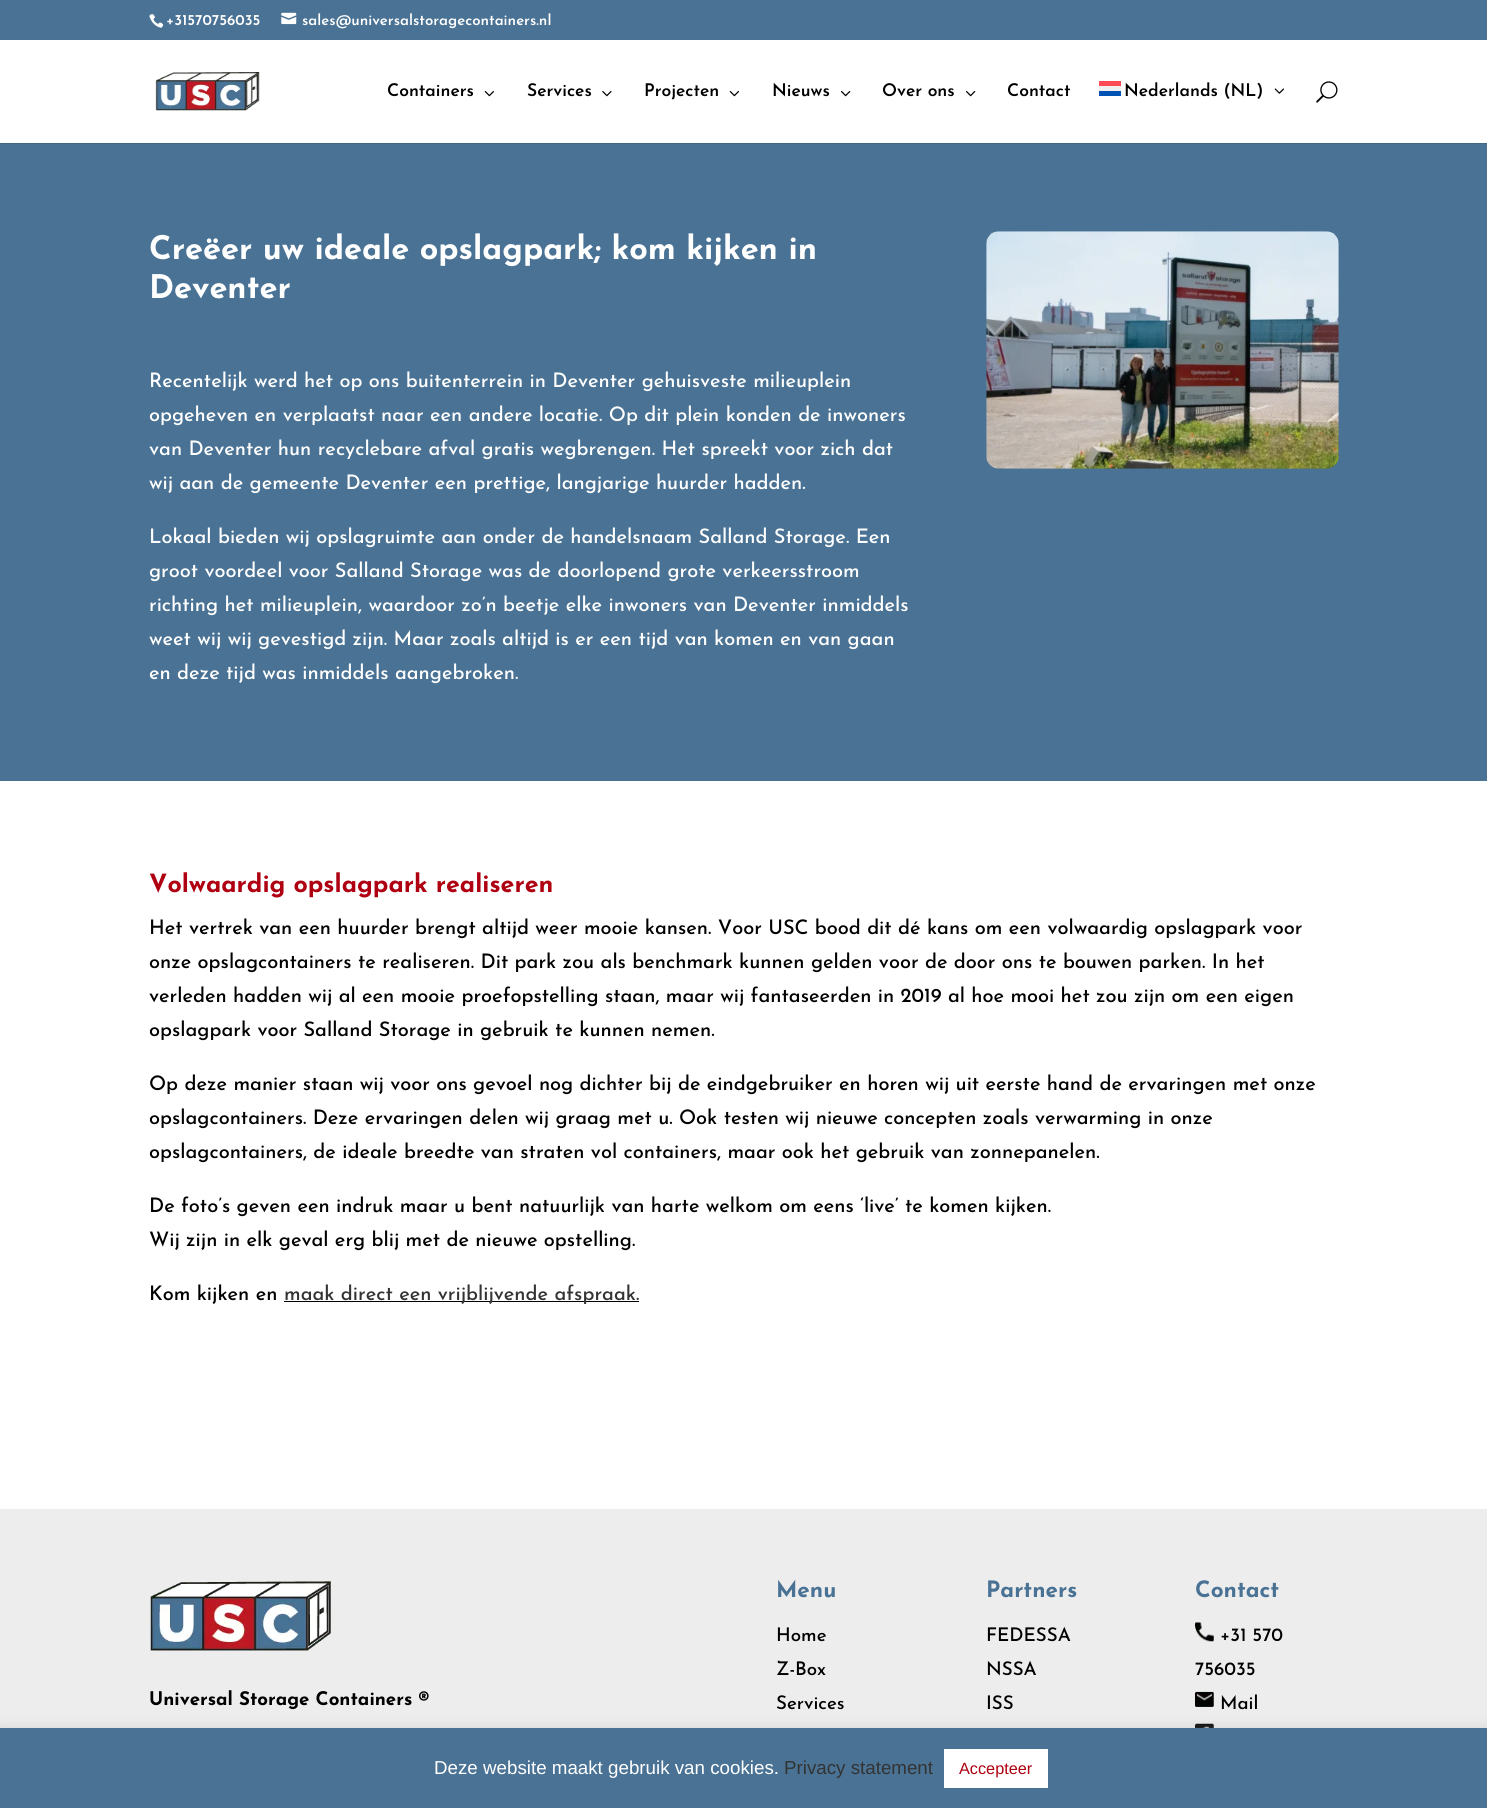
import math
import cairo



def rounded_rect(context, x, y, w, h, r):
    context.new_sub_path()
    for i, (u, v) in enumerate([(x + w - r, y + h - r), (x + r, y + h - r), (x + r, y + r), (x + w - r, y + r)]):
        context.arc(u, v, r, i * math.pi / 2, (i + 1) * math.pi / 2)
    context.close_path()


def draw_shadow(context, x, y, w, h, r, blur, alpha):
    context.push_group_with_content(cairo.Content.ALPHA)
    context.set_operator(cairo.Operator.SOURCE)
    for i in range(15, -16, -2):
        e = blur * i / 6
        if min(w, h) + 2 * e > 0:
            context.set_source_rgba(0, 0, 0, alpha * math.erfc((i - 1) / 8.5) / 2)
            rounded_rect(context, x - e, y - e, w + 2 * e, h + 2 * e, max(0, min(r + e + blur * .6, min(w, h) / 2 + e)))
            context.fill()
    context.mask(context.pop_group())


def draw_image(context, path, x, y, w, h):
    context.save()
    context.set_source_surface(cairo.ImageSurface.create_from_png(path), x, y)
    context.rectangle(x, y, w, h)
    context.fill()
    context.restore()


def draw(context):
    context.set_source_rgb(1, 1, 1)
    context.paint()
    context.set_source_rgb(73 / 255, 114 / 255, 148 / 255)
    context.rectangle(0, 0, 1487, 40)
    context.fill()
    draw_image(context, "images/1.png", 149, 14, 15, 14)
    draw_image(context, "images/2.png", 281, 12, 16, 13)
    context.rectangle(0, 143, 1487, 638)
    context.fill()
    context.set_source_rgba(0, 0, 0, 0.1)
    context.new_path()
    context.move_to(0, 142)
    context.line_to(0, 144)
    context.line_to(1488, 144)
    context.line_to(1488, 41)
    context.line_to(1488, 142)
    context.close_path()
    context.fill()
    context.set_source_rgb(1, 1, 1)
    context.rectangle(0, 142, 1487, 1)
    context.fill()
    draw_image(context, "images/3.png", 155, 72, 105, 39)
    draw_image(context, "images/4.png", 484, 91, 10, 6)
    draw_image(context, "images/5.png", 602, 91, 10, 6)
    draw_image(context, "images/4.png", 729, 91, 10, 6)
    draw_image(context, "images/6.png", 841, 91, 10, 6)
    draw_image(context, "images/6.png", 966, 91, 10, 6)
    context.set_source_rgb(1, 75 / 255, 85 / 255)
    context.rectangle(1099, 81, 22, 5)
    context.fill()
    context.set_source_rgb(240 / 255, 240 / 255, 240 / 255)
    context.rectangle(1099, 86, 22, 5)
    context.fill()
    draw_image(context, "images/7.png", 1274, 88, 10, 6)
    context.set_source_rgb(0, 82 / 255, 180 / 255)
    context.rectangle(1099, 91, 22, 5)
    context.fill()
    draw_image(context, "images/8.png", 1316, 81, 22, 22)
    draw_image(context, "images/9.png", 986, 231, 353, 238)
    context.set_source_rgb(0, 0, 0)
    context.rectangle(284, 1301, 355, 1)
    context.fill()
    context.set_source_rgb(237 / 255, 237 / 255, 237 / 255)
    context.rectangle(0, 1509, 1487, 219)
    context.fill()
    draw_image(context, "images/10.png", 150, 1581, 181, 70)
    draw_image(context, "images/11.png", 1195, 1622, 19, 20)
    draw_image(context, "images/12.png", 1195, 1691, 19, 16)
    draw_image(context, "images/13.png", 1195, 1723, 19, 5)
    context.set_source_rgb(172 / 255, 171 / 255, 171 / 255)
    draw_shadow(context, 0, 1726, 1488, 82, 0, 6, 0.3)
    context.set_source_rgb(73 / 255, 114 / 255, 148 / 255)
    context.rectangle(0, 1728, 1487, 80)
    context.fill()
    context.set_source_rgb(1, 1, 1)
    context.rectangle(944, 1749, 104, 39)
    context.fill()
    context.select_font_face("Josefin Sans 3 Thin")
    context.set_font_size(15)
    context.move_to(166, 25)
    context.show_text("+31570756035")
    context.move_to(302, 25)
    context.show_text("sales@universalstoragecontainers.nl")
    context.set_font_size(17.5)
    context.set_source_rgb(0, 0, 0)
    context.move_to(387, 96)
    context.show_text("Containers")
    context.move_to(527, 96)
    context.show_text("Services")
    context.move_to(644, 96)
    context.show_text("Projecten")
    context.move_to(772, 96)
    context.show_text("Nieuws")
    context.move_to(882, 96)
    context.show_text("Over ons")
    context.move_to(1007, 96)
    context.show_text("Contact")
    context.move_to(1124, 96)
    context.show_text("Nederlands (NL)")
    context.select_font_face("Josefin Sans Thin")
    context.set_font_size(32.5)
    context.set_source_rgb(1, 1, 1)
    context.move_to(149, 259)
    context.show_text("Creëer uw ideale opslagpark; kom kijken in")
    context.move_to(149, 298)
    context.show_text("Deventer")
    context.select_font_face("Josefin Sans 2 Thin")
    context.set_font_size(20)
    context.move_to(149, 387)
    context.show_text("Recentelijk werd het op ons buitenterrein in Deventer gehuisveste milieuplein")
    context.move_to(149, 421)
    context.show_text("opgeheven en verplaatst naar een andere locatie. Op dit plein konden de inwoners")
    context.move_to(149, 455)
    context.show_text("van Deventer hun recyclebare afval gratis wegbrengen. Het spreekt voor zich dat")
    context.move_to(149, 489)
    context.show_text("wij aan de gemeente Deventer een prettige, langjarige huurder hadden.")
    context.move_to(149, 543)
    context.show_text("Lokaal bieden wij opslagruimte aan onder de handelsnaam Salland Storage. Een")
    context.move_to(149, 577)
    context.show_text("groot voordeel voor Salland Storage was de doorlopend grote verkeersstroom")
    context.move_to(149, 611)
    context.show_text("richting het milieuplein, waardoor zo’n beetje elke inwoners van Deventer inmiddels")
    context.move_to(149, 645)
    context.show_text("weet wij wij gevestigd zijn. Maar zoals altijd is er een tijd van komen en van gaan")
    context.move_to(149, 679)
    context.show_text("en deze tijd was inmiddels aangebroken.")
    context.select_font_face("Josefin Sans Thin")
    context.set_font_size(25)
    context.set_source_rgb(175 / 255, 0, 17 / 255)
    context.move_to(149, 892)
    context.show_text("Volwaardig opslagpark realiseren")
    context.select_font_face("Josefin Sans 2 Thin")
    context.set_font_size(20)
    context.set_source_rgb(0, 0, 0)
    context.move_to(149, 934)
    context.show_text("Het vertrek van een huurder brengt altijd weer mooie kansen. Voor USC bood dit dé kans om een volwaardig opslagpark voor")
    context.move_to(149, 968)
    context.show_text("onze opslagcontainers te realiseren. Dit park zou als benchmark kunnen gelden voor de door ons te bouwen parken. In het")
    context.move_to(149, 1002)
    context.show_text("verleden hadden wij al een mooie proefopstelling staan, maar wij fantaseerden in 2019 al hoe mooi het zou zijn om een eigen")
    context.move_to(149, 1036)
    context.show_text("opslagpark voor Salland Storage in gebruik te kunnen nemen.")
    context.move_to(149, 1090)
    context.show_text("Op deze manier staan wij voor ons gevoel nog dichter bij de eindgebruiker en horen wij uit eerste hand de ervaringen met onze")
    context.move_to(149, 1124)
    context.show_text("opslagcontainers. Deze ervaringen delen wij graag met u. Ook testen wij nieuwe concepten zoals verwarming in onze")
    context.move_to(149, 1158)
    context.show_text("opslagcontainers, de ideale breedte van straten vol containers, maar ook het gebruik van zonnepanelen.")
    context.move_to(149, 1212)
    context.show_text("De foto’s geven een indruk maar u bent natuurlijk van harte welkom om eens ‘live’ te komen kijken.")
    context.move_to(149, 1246)
    context.show_text("Wij zijn in elk geval erg blij met de nieuwe opstelling.")
    context.move_to(149, 1300)
    context.show_text("Kom kijken en")
    context.set_source_rgb(51 / 255, 51 / 255, 51 / 255)
    context.move_to(284, 1300)
    context.show_text("maak direct een vrijblijvende afspraak.")
    context.select_font_face("Josefin Sans Thin")
    context.set_font_size(18.75)
    context.set_source_rgb(0, 0, 0)
    context.move_to(149, 1705)
    context.show_text("Universal Storage Containers ®")
    context.set_font_size(22.5)
    context.set_source_rgb(73 / 255, 114 / 255, 148 / 255)
    context.move_to(776, 1597)
    context.show_text("Menu")
    context.select_font_face("Josefin Sans 2 Thin")
    context.set_font_size(18.75)
    context.set_source_rgb(0, 0, 0)
    context.move_to(776, 1641)
    context.show_text("Home")
    context.move_to(776, 1675)
    context.show_text("Z-Box")
    context.move_to(776, 1709)
    context.show_text("Services")
    context.select_font_face("Josefin Sans Thin")
    context.set_font_size(22.5)
    context.set_source_rgb(73 / 255, 114 / 255, 148 / 255)
    context.move_to(986, 1597)
    context.show_text("Partners")
    context.select_font_face("Josefin Sans 2 Thin")
    context.set_font_size(18.75)
    context.set_source_rgb(0, 0, 0)
    context.move_to(986, 1641)
    context.show_text("FEDESSA")
    context.move_to(986, 1675)
    context.show_text("NSSA")
    context.move_to(986, 1709)
    context.show_text("ISS")
    context.select_font_face("Josefin Sans Thin")
    context.set_font_size(22.5)
    context.set_source_rgb(73 / 255, 114 / 255, 148 / 255)
    context.move_to(1195, 1597)
    context.show_text("Contact")
    context.select_font_face("Josefin Sans 2 Thin")
    context.set_font_size(18.75)
    context.set_source_rgb(0, 0, 0)
    context.move_to(1220, 1641)
    context.show_text("+31 570")
    context.move_to(1195, 1675)
    context.show_text("756035")
    context.move_to(1220, 1709)
    context.show_text("Mail")
    context.select_font_face("Liberation Sans")
    context.set_source_rgb(1, 1, 1)
    context.move_to(434, 1774)
    context.show_text("Deze website maakt gebruik van cookies.")
    context.set_source_rgb(51 / 255, 51 / 255, 51 / 255)
    context.move_to(784, 1774)
    context.show_text("Privacy statement")
    context.set_font_size(16.25)
    context.set_source_rgb(175 / 255, 0, 17 / 255)
    context.move_to(959, 1774)
    context.show_text("Accepteer")


surface = cairo.ImageSurface(cairo.Format.RGB24, 1487, 1808)
context = cairo.Context(surface)
options = cairo.FontOptions()
options.set_hint_metrics(cairo.HintMetrics.OFF)
options.set_hint_style(cairo.HintStyle.NONE)
context.set_font_options(options)
context.set_miter_limit(4)
draw(context)
surface.write_to_png("out.png")
